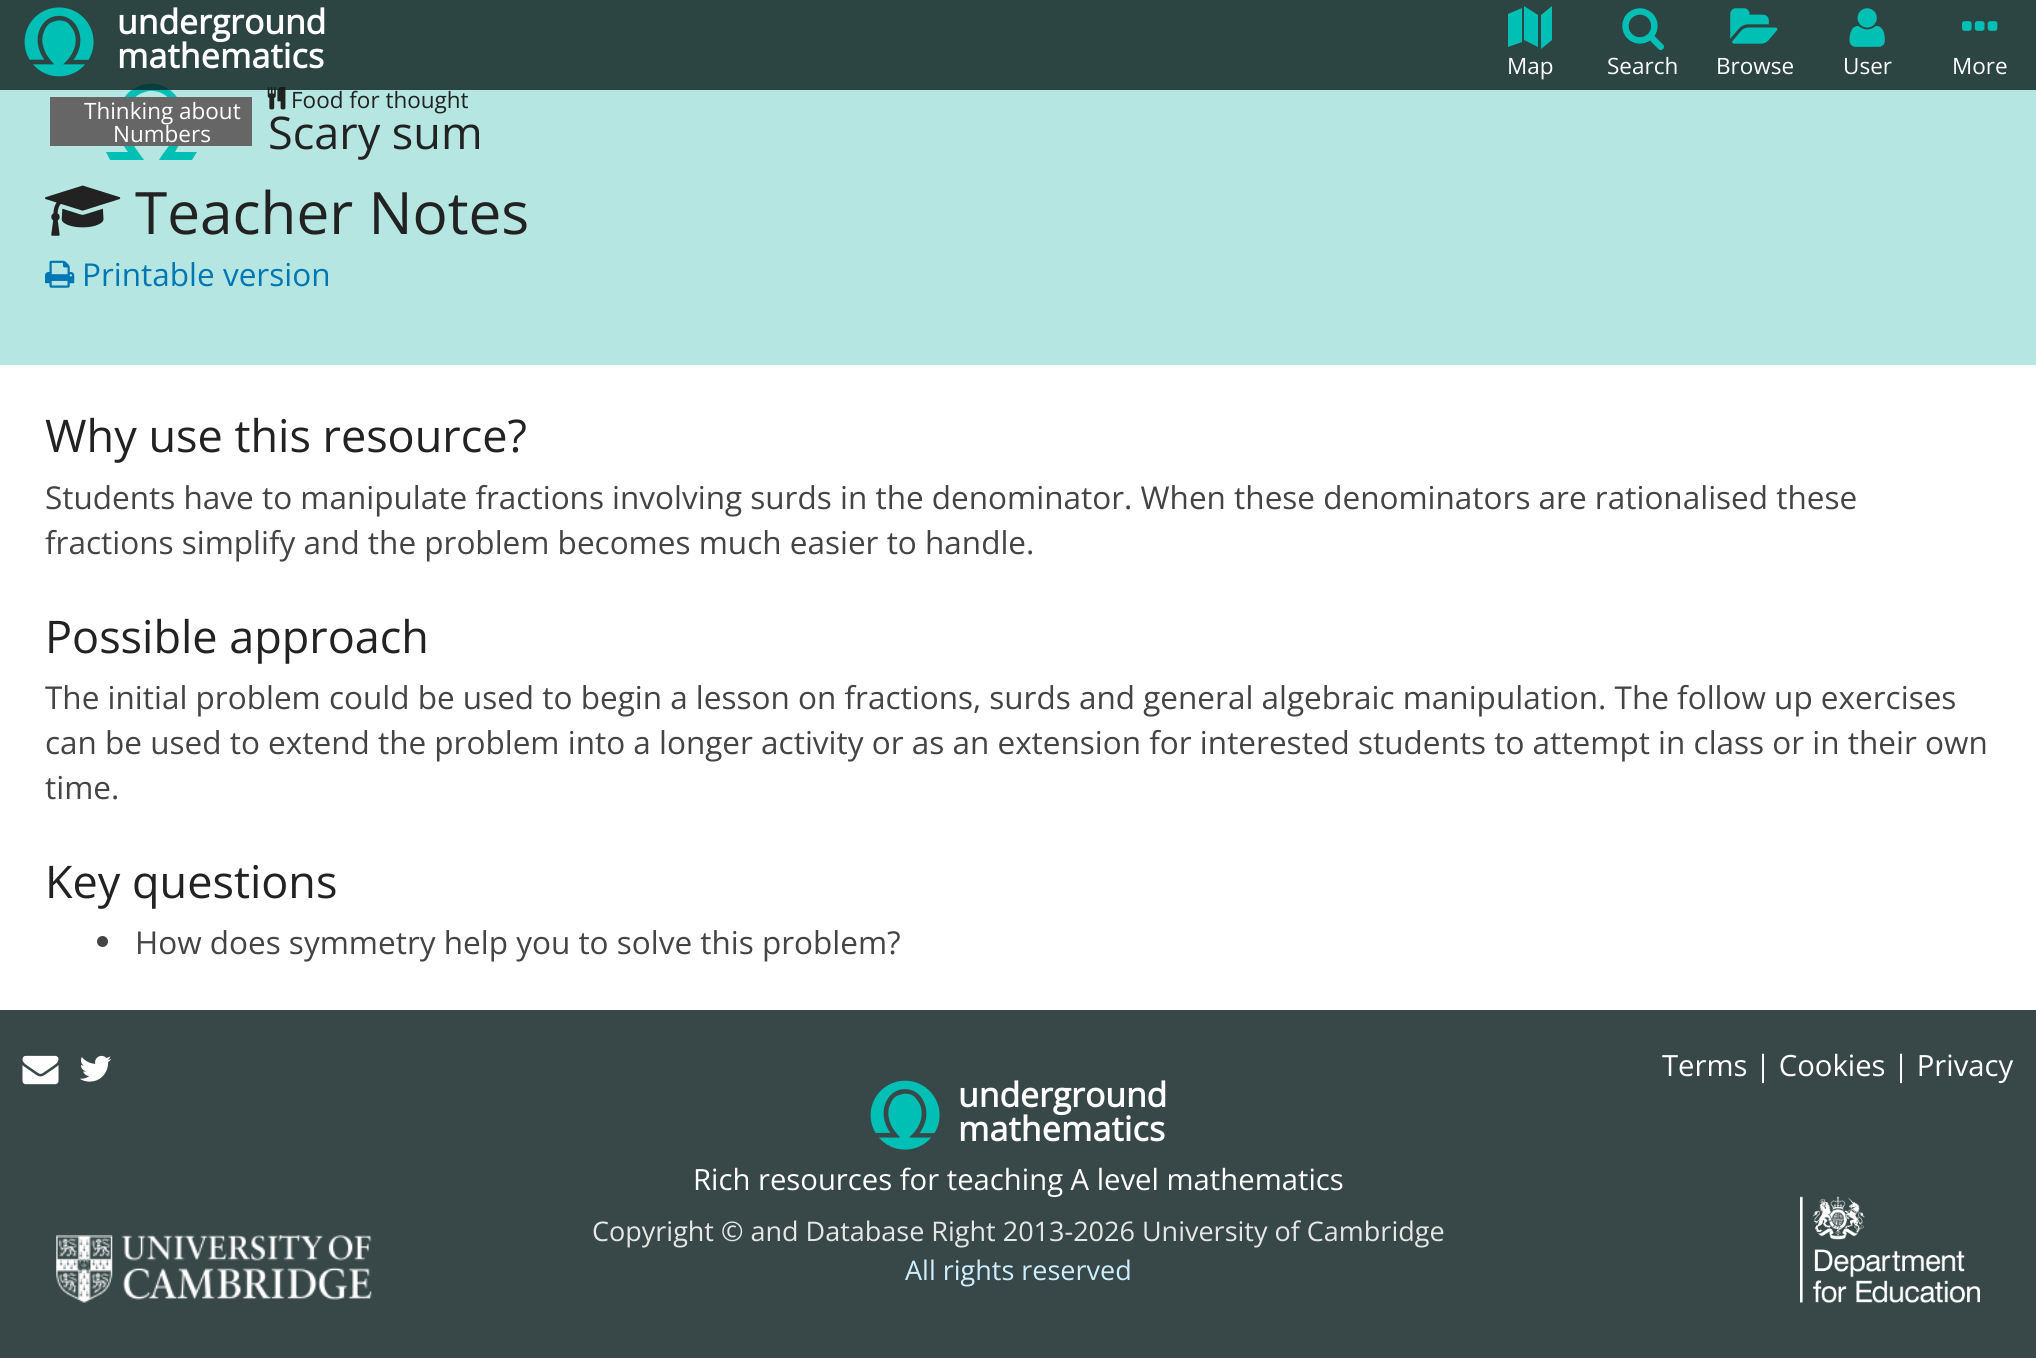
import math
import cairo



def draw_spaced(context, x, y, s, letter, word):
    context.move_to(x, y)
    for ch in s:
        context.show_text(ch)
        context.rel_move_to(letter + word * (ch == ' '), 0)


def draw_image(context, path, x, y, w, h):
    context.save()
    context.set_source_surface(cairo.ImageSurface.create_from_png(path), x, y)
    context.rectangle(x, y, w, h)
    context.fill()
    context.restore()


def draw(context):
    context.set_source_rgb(181 / 255, 230 / 255, 225 / 255)
    context.paint()
    context.set_source_rgb(0, 191 / 255, 181 / 255)
    context.new_path()
    context.move_to(110, 160)
    context.line_to(144, 160)
    context.curve_to(132, 144, 120, 128, 128, 108)
    context.curve_to(131, 100, 137, 94, 145, 92)
    context.curve_to(150, 90, 154, 91, 159, 92)
    context.curve_to(176, 98, 180, 119, 175, 135)
    context.curve_to(172, 144, 164, 151, 159, 160)
    context.line_to(192, 160)
    context.line_to(197, 152)
    context.line_to(175, 152)
    context.curve_to(179, 145, 184, 137, 185, 128)
    context.line_to(184, 114)
    context.curve_to(181, 96, 166, 81, 146, 84)
    context.curve_to(140, 85, 134, 88, 129, 92)
    context.curve_to(113, 107, 115, 136, 128, 152)
    context.line_to(106, 152)
    context.line_to(110, 160)
    context.fill()
    draw_image(context, "images/6.png", 267, 86, 19, 24)
    context.set_source_rgba(10 / 255, 29 / 255, 28 / 255, 0.8)
    context.rectangle(0, 0, 2036, 90)
    context.fill()
    draw_image(context, "images/1.png", 24, 7, 70, 70)
    context.set_source_rgb(0, 191 / 255, 181 / 255)
    context.new_path()
    context.move_to(1508, 14)
    context.line_to(1522, 8)
    context.line_to(1522, 42)
    context.line_to(1508, 47)
    context.close_path()
    context.move_to(1524, 6)
    context.line_to(1538, 15)
    context.line_to(1538, 47)
    context.line_to(1524, 40)
    context.close_path()
    context.move_to(1541, 15)
    context.line_to(1552, 6)
    context.line_to(1552, 40)
    context.line_to(1541, 49)
    context.close_path()
    context.fill()
    draw_image(context, "images/2.png", 1622, 8, 42, 42)
    draw_image(context, "images/3.png", 1730, 8, 48, 36)
    draw_image(context, "images/4.png", 1849, 8, 36, 39)
    draw_image(context, "images/5.png", 1962, 21, 36, 10)
    context.set_source_rgb(1, 1, 1)
    context.rectangle(0, 365, 2036, 645)
    context.fill()
    context.set_source_rgb(102 / 255, 102 / 255, 102 / 255)
    context.rectangle(50, 97, 202, 49)
    context.fill()
    draw_image(context, "images/7.png", 45, 185, 76, 51)
    draw_image(context, "images/8.png", 45, 260, 30, 28)
    context.set_source_rgb(68 / 255, 68 / 255, 68 / 255)
    context.arc(102.5, 941.5, 5.5, 0, 2 * math.pi)
    context.fill()
    context.set_source_rgb(56 / 255, 72 / 255, 72 / 255)
    context.rectangle(0, 1010, 2036, 348)
    context.fill()
    draw_image(context, "images/9.png", 22, 1055, 37, 30)
    draw_image(context, "images/10.png", 79, 1055, 33, 27)
    draw_image(context, "images/11.png", 870, 1080, 70, 70)
    draw_image(context, "images/12.png", 56, 1235, 316, 68)
    draw_image(context, "images/13.png", 1800, 1196, 180, 107)
    context.select_font_face("Open Sans", cairo.FontSlant.NORMAL, cairo.FontWeight.BOLD)
    context.set_font_size(33.75)
    context.set_source_rgb(1, 1, 1)
    context.move_to(117, 34)
    context.show_text("underground")
    draw_spaced(context, 117, 68, "mathematics", 0.25, 0)
    context.select_font_face("Open Sans")
    context.set_font_size(22.5)
    context.move_to(1507, 74)
    context.show_text("Map")
    context.move_to(1607, 74)
    context.show_text("Search")
    context.move_to(1716, 74)
    context.show_text("Browse")
    context.move_to(1843, 74)
    context.show_text("User")
    context.move_to(1952, 74)
    context.show_text("More")
    context.move_to(84, 119)
    context.show_text("Thinking about")
    context.move_to(113, 142)
    context.show_text("Numbers")
    context.set_source_rgb(34 / 255, 34 / 255, 34 / 255)
    context.move_to(291, 108)
    context.show_text("Food for thought")
    context.set_font_size(45)
    context.move_to(268, 149)
    context.show_text("Scary sum")
    context.set_font_size(58.5)
    context.move_to(135, 234)
    context.show_text("Teacher Notes")
    context.set_font_size(31.5)
    context.set_source_rgb(0, 119 / 255, 179 / 255)
    context.move_to(82, 286)
    context.show_text("Printable version")
    context.set_font_size(45)
    context.set_source_rgb(34 / 255, 34 / 255, 34 / 255)
    context.move_to(45, 452)
    context.show_text("Why use this resource?")
    context.set_font_size(31.5)
    context.set_source_rgb(68 / 255, 68 / 255, 68 / 255)
    context.move_to(45, 509)
    context.show_text("Students have to manipulate fractions involving surds in the denominator. When these denominators are rationalised these")
    context.move_to(45, 554)
    context.show_text("fractions simplify and the problem becomes much easier to handle.")
    context.set_font_size(45)
    context.set_source_rgb(34 / 255, 34 / 255, 34 / 255)
    context.move_to(45, 653)
    context.show_text("Possible approach")
    context.set_font_size(31.5)
    context.set_source_rgb(68 / 255, 68 / 255, 68 / 255)
    context.move_to(45, 709)
    context.show_text("The initial problem could be used to begin a lesson on fractions, surds and general algebraic manipulation. The follow up exercises")
    context.move_to(45, 754)
    context.show_text("can be used to extend the problem into a longer activity or as an extension for interested students to attempt in class or in their own")
    context.move_to(45, 799)
    context.show_text("time.")
    context.set_font_size(45)
    context.set_source_rgb(34 / 255, 34 / 255, 34 / 255)
    context.move_to(45, 898)
    context.show_text("Key questions")
    context.set_font_size(31.5)
    context.set_source_rgb(68 / 255, 68 / 255, 68 / 255)
    context.move_to(135, 954)
    context.show_text("How does symmetry help you to solve this problem?")
    context.set_font_size(29.25)
    context.set_source_rgb(1, 1, 1)
    context.move_to(1662, 1076)
    context.show_text("Terms | Cookies | Privacy")
    context.select_font_face("Open Sans", cairo.FontSlant.NORMAL, cairo.FontWeight.BOLD)
    context.set_font_size(33.75)
    context.move_to(958, 1107)
    context.show_text("underground")
    draw_spaced(context, 958, 1141, "mathematics", 0.25, 0)
    context.select_font_face("Open Sans")
    context.set_font_size(29.25)
    context.move_to(693, 1190)
    context.show_text("Rich resources for teaching A level mathematics")
    context.set_font_size(27)
    context.set_source_rgb(230 / 255, 230 / 255, 230 / 255)
    context.move_to(592, 1241)
    context.show_text("Copyright © and Database Right 2013-2026 University of Cambridge")
    context.set_source_rgb(204 / 255, 238 / 255, 1)
    context.move_to(905, 1280)
    context.show_text("All rights reserved")


surface = cairo.ImageSurface(cairo.Format.RGB24, 2036, 1358)
context = cairo.Context(surface)
options = cairo.FontOptions()
options.set_hint_metrics(cairo.HintMetrics.OFF)
options.set_hint_style(cairo.HintStyle.NONE)
context.set_font_options(options)
context.set_miter_limit(4)
draw(context)
surface.write_to_png("out.png")
